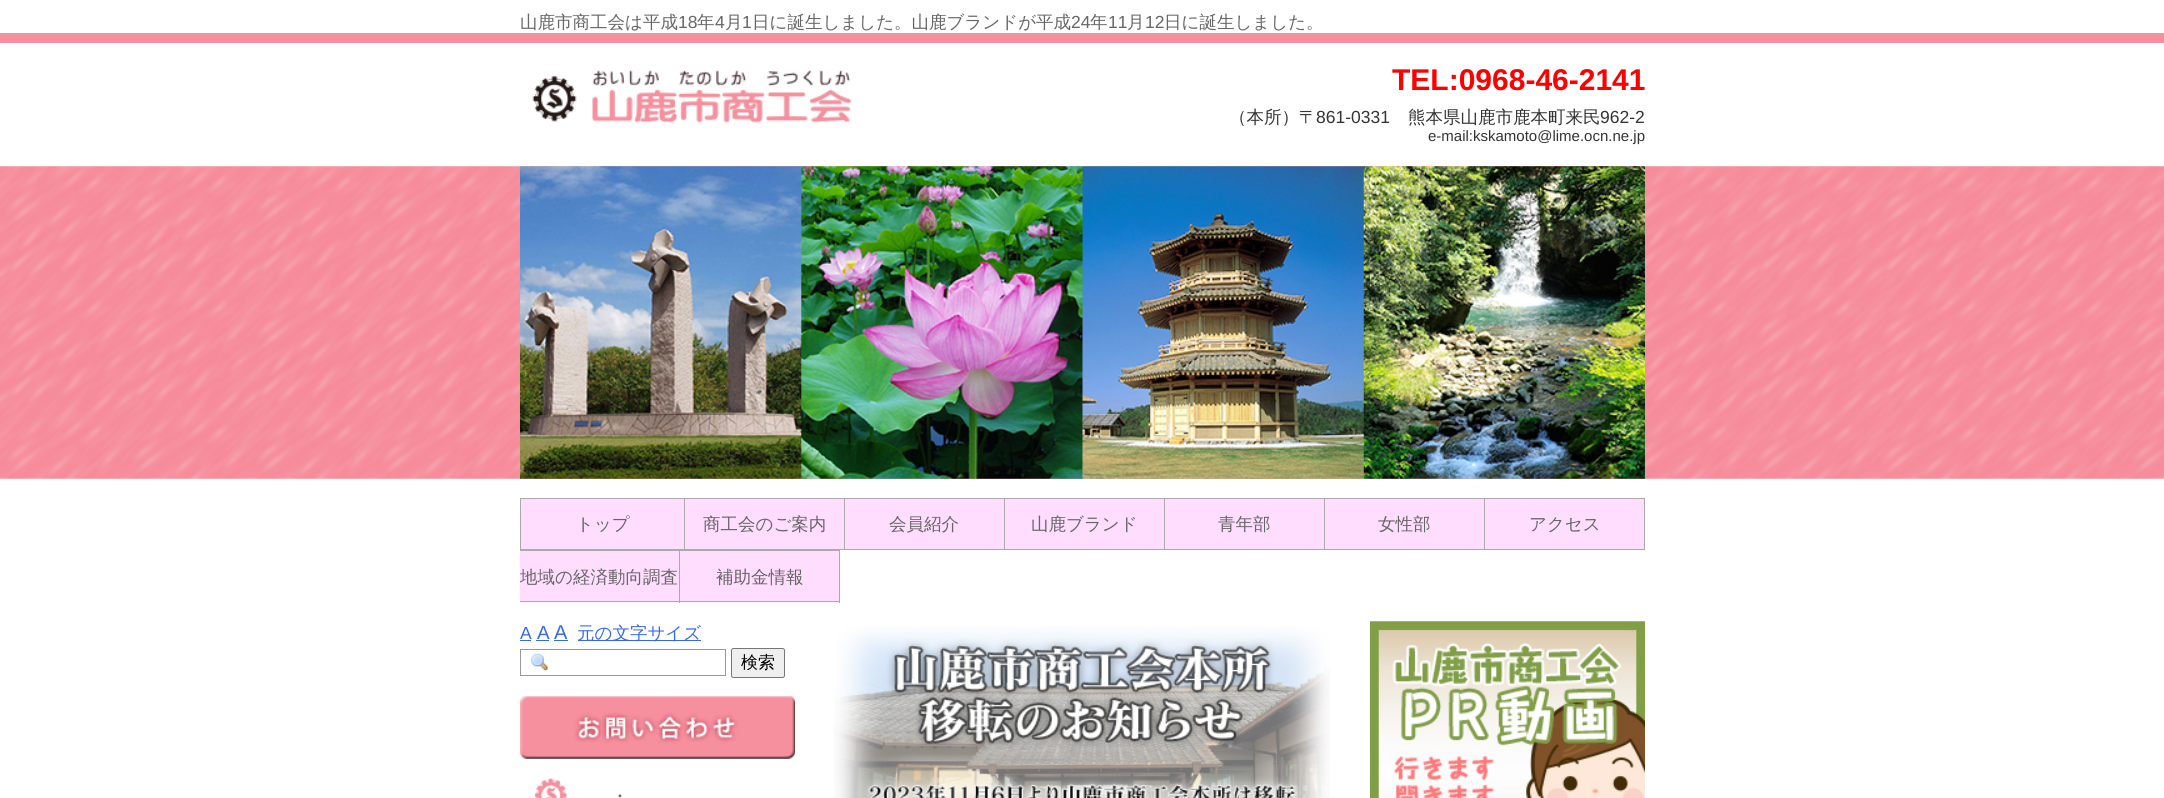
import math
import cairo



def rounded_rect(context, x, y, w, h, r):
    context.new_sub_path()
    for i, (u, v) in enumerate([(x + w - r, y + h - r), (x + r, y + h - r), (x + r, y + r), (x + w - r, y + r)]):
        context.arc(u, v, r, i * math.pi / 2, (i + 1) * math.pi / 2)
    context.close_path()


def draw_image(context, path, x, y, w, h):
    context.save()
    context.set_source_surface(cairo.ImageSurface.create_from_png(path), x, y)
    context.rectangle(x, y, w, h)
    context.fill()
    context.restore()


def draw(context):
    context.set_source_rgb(1, 1, 1)
    context.paint()
    context.set_source_rgb(246 / 255, 143 / 255, 158 / 255)
    context.rectangle(0, 33, 2164, 10)
    context.fill()
    draw_image(context, "images/1.png", 532, 70, 320, 53)
    draw_image(context, "images/2.png", 0, 166, 2164, 313)
    draw_image(context, "images/3.png", 520, 166, 1125, 313)
    context.rectangle(520.5, 498.5, 164, 51)
    context.set_source_rgb(170 / 255, 170 / 255, 170 / 255)
    context.set_line_width(1)
    context.stroke()
    context.set_source_rgb(1, 221 / 255, 1)
    context.rectangle(521, 499, 163, 50)
    context.fill()
    context.set_source_rgb(170 / 255, 170 / 255, 170 / 255)
    context.rectangle(685, 498, 960, 1)
    context.fill()
    context.rectangle(844, 498, 1, 52)
    context.fill()
    context.rectangle(685, 549, 160, 1)
    context.fill()
    context.set_source_rgb(1, 221 / 255, 1)
    context.rectangle(685, 499, 159, 50)
    context.fill()
    context.set_source_rgb(170 / 255, 170 / 255, 170 / 255)
    context.rectangle(1004, 498, 1, 52)
    context.fill()
    context.rectangle(845, 549, 160, 1)
    context.fill()
    context.set_source_rgb(1, 221 / 255, 1)
    context.rectangle(845, 499, 159, 50)
    context.fill()
    context.set_source_rgb(170 / 255, 170 / 255, 170 / 255)
    context.rectangle(1164, 498, 1, 52)
    context.fill()
    context.rectangle(1005, 549, 160, 1)
    context.fill()
    context.set_source_rgb(1, 221 / 255, 1)
    context.rectangle(1005, 499, 159, 50)
    context.fill()
    context.set_source_rgb(170 / 255, 170 / 255, 170 / 255)
    context.rectangle(1324, 498, 1, 52)
    context.fill()
    context.rectangle(1165, 549, 160, 1)
    context.fill()
    context.set_source_rgb(1, 221 / 255, 1)
    context.rectangle(1165, 499, 159, 50)
    context.fill()
    context.set_source_rgb(170 / 255, 170 / 255, 170 / 255)
    context.rectangle(1484, 498, 1, 52)
    context.fill()
    context.rectangle(1325, 549, 160, 1)
    context.fill()
    context.set_source_rgb(1, 221 / 255, 1)
    context.rectangle(1325, 499, 159, 50)
    context.fill()
    context.set_source_rgb(170 / 255, 170 / 255, 170 / 255)
    context.rectangle(1644, 498, 1, 52)
    context.fill()
    context.rectangle(1485, 549, 160, 1)
    context.fill()
    context.set_source_rgb(1, 221 / 255, 1)
    context.rectangle(1485, 499, 159, 50)
    context.fill()
    context.set_source_rgb(170 / 255, 170 / 255, 170 / 255)
    context.rectangle(520, 550, 320, 1)
    context.fill()
    context.rectangle(679, 550, 1, 53)
    context.fill()
    context.rectangle(520, 601, 160, 1)
    context.fill()
    context.set_source_rgb(1, 221 / 255, 1)
    context.rectangle(520, 551, 159, 50)
    context.fill()
    context.set_source_rgb(170 / 255, 170 / 255, 170 / 255)
    context.rectangle(839, 550, 1, 53)
    context.fill()
    context.rectangle(680, 601, 160, 1)
    context.fill()
    context.set_source_rgb(1, 221 / 255, 1)
    context.rectangle(680, 551, 159, 50)
    context.fill()
    context.set_source_rgb(52 / 255, 105 / 255, 238 / 255)
    context.rectangle(520, 640, 11, 1)
    context.fill()
    context.rectangle(536, 640, 13, 1)
    context.fill()
    context.rectangle(554, 640, 14, 1)
    context.fill()
    context.rectangle(578, 640, 123, 1)
    context.fill()
    draw_image(context, "images/4.png", 531, 653, 17, 19)
    context.rectangle(520.5, 649.5, 205, 26)
    context.set_source_rgb(153 / 255, 153 / 255, 153 / 255)
    context.stroke()
    context.set_source_rgb(239 / 255, 239 / 255, 239 / 255)
    rounded_rect(context, 731.5, 648.5, 53, 29, 2)
    context.fill_preserve()
    context.set_source_rgb(118 / 255, 118 / 255, 118 / 255)
    context.stroke()
    draw_image(context, "images/5.png", 520, 696, 275, 63)
    draw_image(context, "images/6.png", 534, 778, 34, 20)
    draw_image(context, "images/7.png", 834, 626, 496, 172)
    draw_image(context, "images/8.png", 1370, 621, 275, 177)
    context.select_font_face("WenQuanYi Zen Hei Medium")
    context.set_font_size(17.5)
    context.set_source_rgb(102 / 255, 102 / 255, 102 / 255)
    context.move_to(520, 28)
    context.show_text("山鹿市商工会は平成")
    context.select_font_face("Liberation Sans")
    context.move_to(678, 28)
    context.show_text("18")
    context.select_font_face("WenQuanYi Zen Hei Medium")
    context.move_to(697, 28)
    context.show_text("年")
    context.select_font_face("Liberation Sans")
    context.move_to(715, 28)
    context.show_text("4")
    context.select_font_face("WenQuanYi Zen Hei Medium")
    context.move_to(725, 28)
    context.show_text("月")
    context.select_font_face("Liberation Sans")
    context.move_to(742, 28)
    context.show_text("1")
    context.select_font_face("WenQuanYi Zen Hei Medium")
    context.move_to(752, 28)
    context.show_text("日に誕生しました。山鹿ブランドが平成")
    context.select_font_face("Liberation Sans")
    context.move_to(1071, 28)
    context.show_text("24")
    context.select_font_face("WenQuanYi Zen Hei Medium")
    context.move_to(1090, 28)
    context.show_text("年")
    context.select_font_face("Liberation Sans")
    context.move_to(1108, 28)
    context.show_text("11")
    context.select_font_face("WenQuanYi Zen Hei Medium")
    context.move_to(1127, 28)
    context.show_text("月")
    context.select_font_face("Liberation Sans")
    context.move_to(1145, 28)
    context.show_text("12")
    context.select_font_face("WenQuanYi Zen Hei Medium")
    context.move_to(1164, 28)
    context.show_text("日に誕生しました。")
    context.select_font_face("Liberation Sans", cairo.FontSlant.NORMAL, cairo.FontWeight.BOLD)
    context.set_font_size(30)
    context.set_source_rgb(1, 0, 0)
    context.move_to(1392, 90)
    context.show_text("TEL:0968-46-2141")
    context.select_font_face("WenQuanYi Zen Hei Medium")
    context.set_font_size(17.5)
    context.set_source_rgb(51 / 255, 51 / 255, 51 / 255)
    context.move_to(1229, 123)
    context.show_text("（本所）〒")
    context.select_font_face("Liberation Sans")
    context.move_to(1316, 123)
    context.show_text("861-0331")
    context.select_font_face("WenQuanYi Zen Hei Medium")
    context.move_to(1408, 123)
    context.show_text("熊本県山鹿市鹿本町来民")
    context.select_font_face("Liberation Sans")
    context.move_to(1600, 123)
    context.show_text("962-2")
    context.set_font_size(15)
    context.move_to(1428, 141)
    context.show_text("e-mail:kskamoto@lime.ocn.ne.jp")
    context.select_font_face("WenQuanYi Zen Hei Medium")
    context.set_font_size(17.5)
    context.set_source_rgb(102 / 255, 102 / 255, 102 / 255)
    context.move_to(576, 530)
    context.show_text("トップ")
    context.move_to(703, 530)
    context.show_text("商工会のご案内")
    context.move_to(889, 530)
    context.show_text("会員紹介")
    context.move_to(1031, 530)
    context.show_text("山鹿ブランド")
    context.move_to(1218, 530)
    context.show_text("青年部")
    context.move_to(1378, 530)
    context.show_text("女性部")
    context.move_to(1529, 530)
    context.show_text("アクセス")
    context.move_to(520, 583)
    context.show_text("地域の経済動向調査")
    context.move_to(716, 583)
    context.show_text("補助金情報")
    context.select_font_face("Liberation Sans")
    context.set_source_rgb(52 / 255, 105 / 255, 238 / 255)
    context.move_to(520, 639)
    context.show_text("A")
    context.set_font_size(19)
    context.move_to(537, 639)
    context.show_text("A")
    context.set_font_size(20)
    context.move_to(554, 639)
    context.show_text("A")
    context.select_font_face("WenQuanYi Zen Hei Medium")
    context.set_font_size(17.5)
    context.move_to(577, 639)
    context.show_text("元の文字サイズ")
    context.set_font_size(17)
    context.set_source_rgb(0, 0, 0)
    context.move_to(741, 668)
    context.show_text("検索")
    context.set_font_size(17.5)
    context.set_source_rgb(102 / 255, 102 / 255, 102 / 255)
    context.move_to(611, 802)
    context.show_text("・")


surface = cairo.ImageSurface(cairo.Format.RGB24, 2164, 798)
context = cairo.Context(surface)
options = cairo.FontOptions()
options.set_hint_metrics(cairo.HintMetrics.OFF)
options.set_hint_style(cairo.HintStyle.NONE)
context.set_font_options(options)
context.set_miter_limit(4)
draw(context)
surface.write_to_png("out.png")
